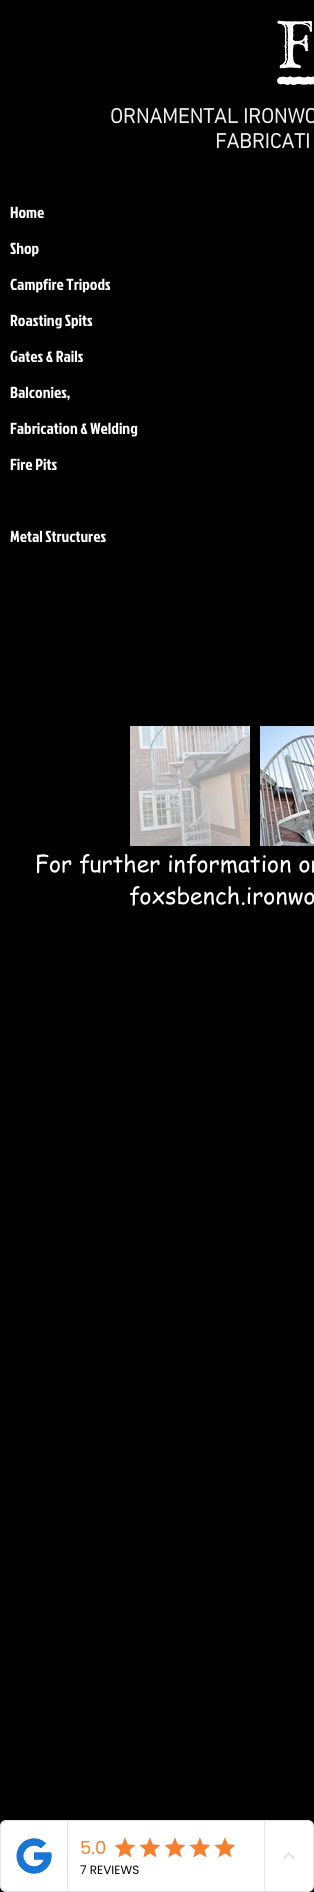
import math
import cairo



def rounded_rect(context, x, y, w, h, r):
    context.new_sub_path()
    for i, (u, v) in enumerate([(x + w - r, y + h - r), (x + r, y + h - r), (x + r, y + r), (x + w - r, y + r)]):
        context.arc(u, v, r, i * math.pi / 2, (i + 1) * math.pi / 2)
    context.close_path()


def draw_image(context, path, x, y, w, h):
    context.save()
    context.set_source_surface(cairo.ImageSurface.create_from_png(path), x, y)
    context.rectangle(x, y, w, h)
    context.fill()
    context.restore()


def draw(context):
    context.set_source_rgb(0, 0, 0)
    context.paint()
    draw_image(context, "images/1.png", 277, 20, 37, 68)
    draw_image(context, "images/2.png", 130, 726, 120, 120)
    draw_image(context, "images/3.png", 260, 726, 54, 120)
    context.set_source_rgb(1, 1, 1)
    rounded_rect(context, 0.5, 1820.5, 313, 71, 5.5)
    context.fill_preserve()
    context.set_source_rgb(229 / 255, 229 / 255, 229 / 255)
    context.set_line_width(1)
    context.stroke()
    context.set_source_rgb(1, 1, 1)
    context.new_path()
    context.move_to(7, 1821)
    context.line_to(68, 1821)
    context.line_to(68, 1891)
    context.line_to(7, 1891)
    context.curve_to(3.5, 1891, 1, 1888.5, 1, 1885)
    context.line_to(1, 1827)
    context.curve_to(1, 1823.5, 3.5, 1821, 7, 1821)
    context.close_path()
    context.fill()
    context.set_source_rgb(229 / 255, 229 / 255, 229 / 255)
    context.rectangle(67, 1821, 1, 70)
    context.fill()
    draw_image(context, "images/4.png", 16, 1838, 36, 36)
    context.rectangle(264, 1821, 1, 70)
    context.fill()
    draw_image(context, "images/6.png", 114, 1838, 21, 19)
    draw_image(context, "images/5.png", 114, 1837, 22, 21)
    draw_image(context, "images/6.png", 139, 1838, 21, 19)
    draw_image(context, "images/5.png", 139, 1837, 22, 21)
    draw_image(context, "images/6.png", 164, 1838, 21, 19)
    draw_image(context, "images/5.png", 164, 1837, 22, 21)
    draw_image(context, "images/6.png", 189, 1838, 21, 19)
    draw_image(context, "images/5.png", 189, 1837, 22, 21)
    draw_image(context, "images/6.png", 214, 1838, 21, 19)
    draw_image(context, "images/5.png", 214, 1837, 22, 21)
    draw_image(context, "images/7.png", 283, 1852, 12, 8)
    context.select_font_face("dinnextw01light", cairo.FontSlant.NORMAL, cairo.FontWeight.BOLD)
    context.set_font_size(21)
    context.set_source_rgb(240 / 255, 240 / 255, 240 / 255)
    context.move_to(110, 123)
    context.show_text("ORNAMENTAL IRONWO")
    context.move_to(215, 148)
    context.show_text("FABRICATI")
    context.select_font_face("Jockey One")
    context.set_font_size(16)
    context.set_source_rgb(1, 1, 1)
    context.move_to(10, 218)
    context.show_text("Home")
    context.move_to(10, 254)
    context.show_text("Shop")
    context.move_to(10, 290)
    context.show_text("Campfire Tripods")
    context.move_to(10, 326)
    context.show_text("Roasting Spits")
    context.move_to(10, 362)
    context.show_text("Gates & Rails")
    context.move_to(10, 398)
    context.show_text("Balconies,")
    context.move_to(10, 434)
    context.show_text("Fabrication & Welding")
    context.move_to(10, 470)
    context.show_text("Fire Pits")
    context.move_to(10, 542)
    context.show_text("Metal Structures")
    context.select_font_face("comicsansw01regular")
    context.set_font_size(23)
    context.move_to(35, 872)
    context.show_text("For further information or")
    context.move_to(129, 904)
    context.show_text("foxsbench.ironwo")
    context.select_font_face("Poppins")
    context.set_font_size(18)
    context.set_source_rgb(247 / 255, 128 / 255, 47 / 255)
    context.move_to(80, 1854)
    context.show_text("5.0")
    context.set_font_size(12)
    context.set_source_rgb(0, 0, 0)
    context.move_to(80, 1874)
    context.show_text("7 REVIEWS")


surface = cairo.ImageSurface(cairo.Format.RGB24, 314, 1892)
context = cairo.Context(surface)
options = cairo.FontOptions()
options.set_hint_metrics(cairo.HintMetrics.OFF)
options.set_hint_style(cairo.HintStyle.NONE)
context.set_font_options(options)
context.set_miter_limit(4)
draw(context)
surface.write_to_png("out.png")
